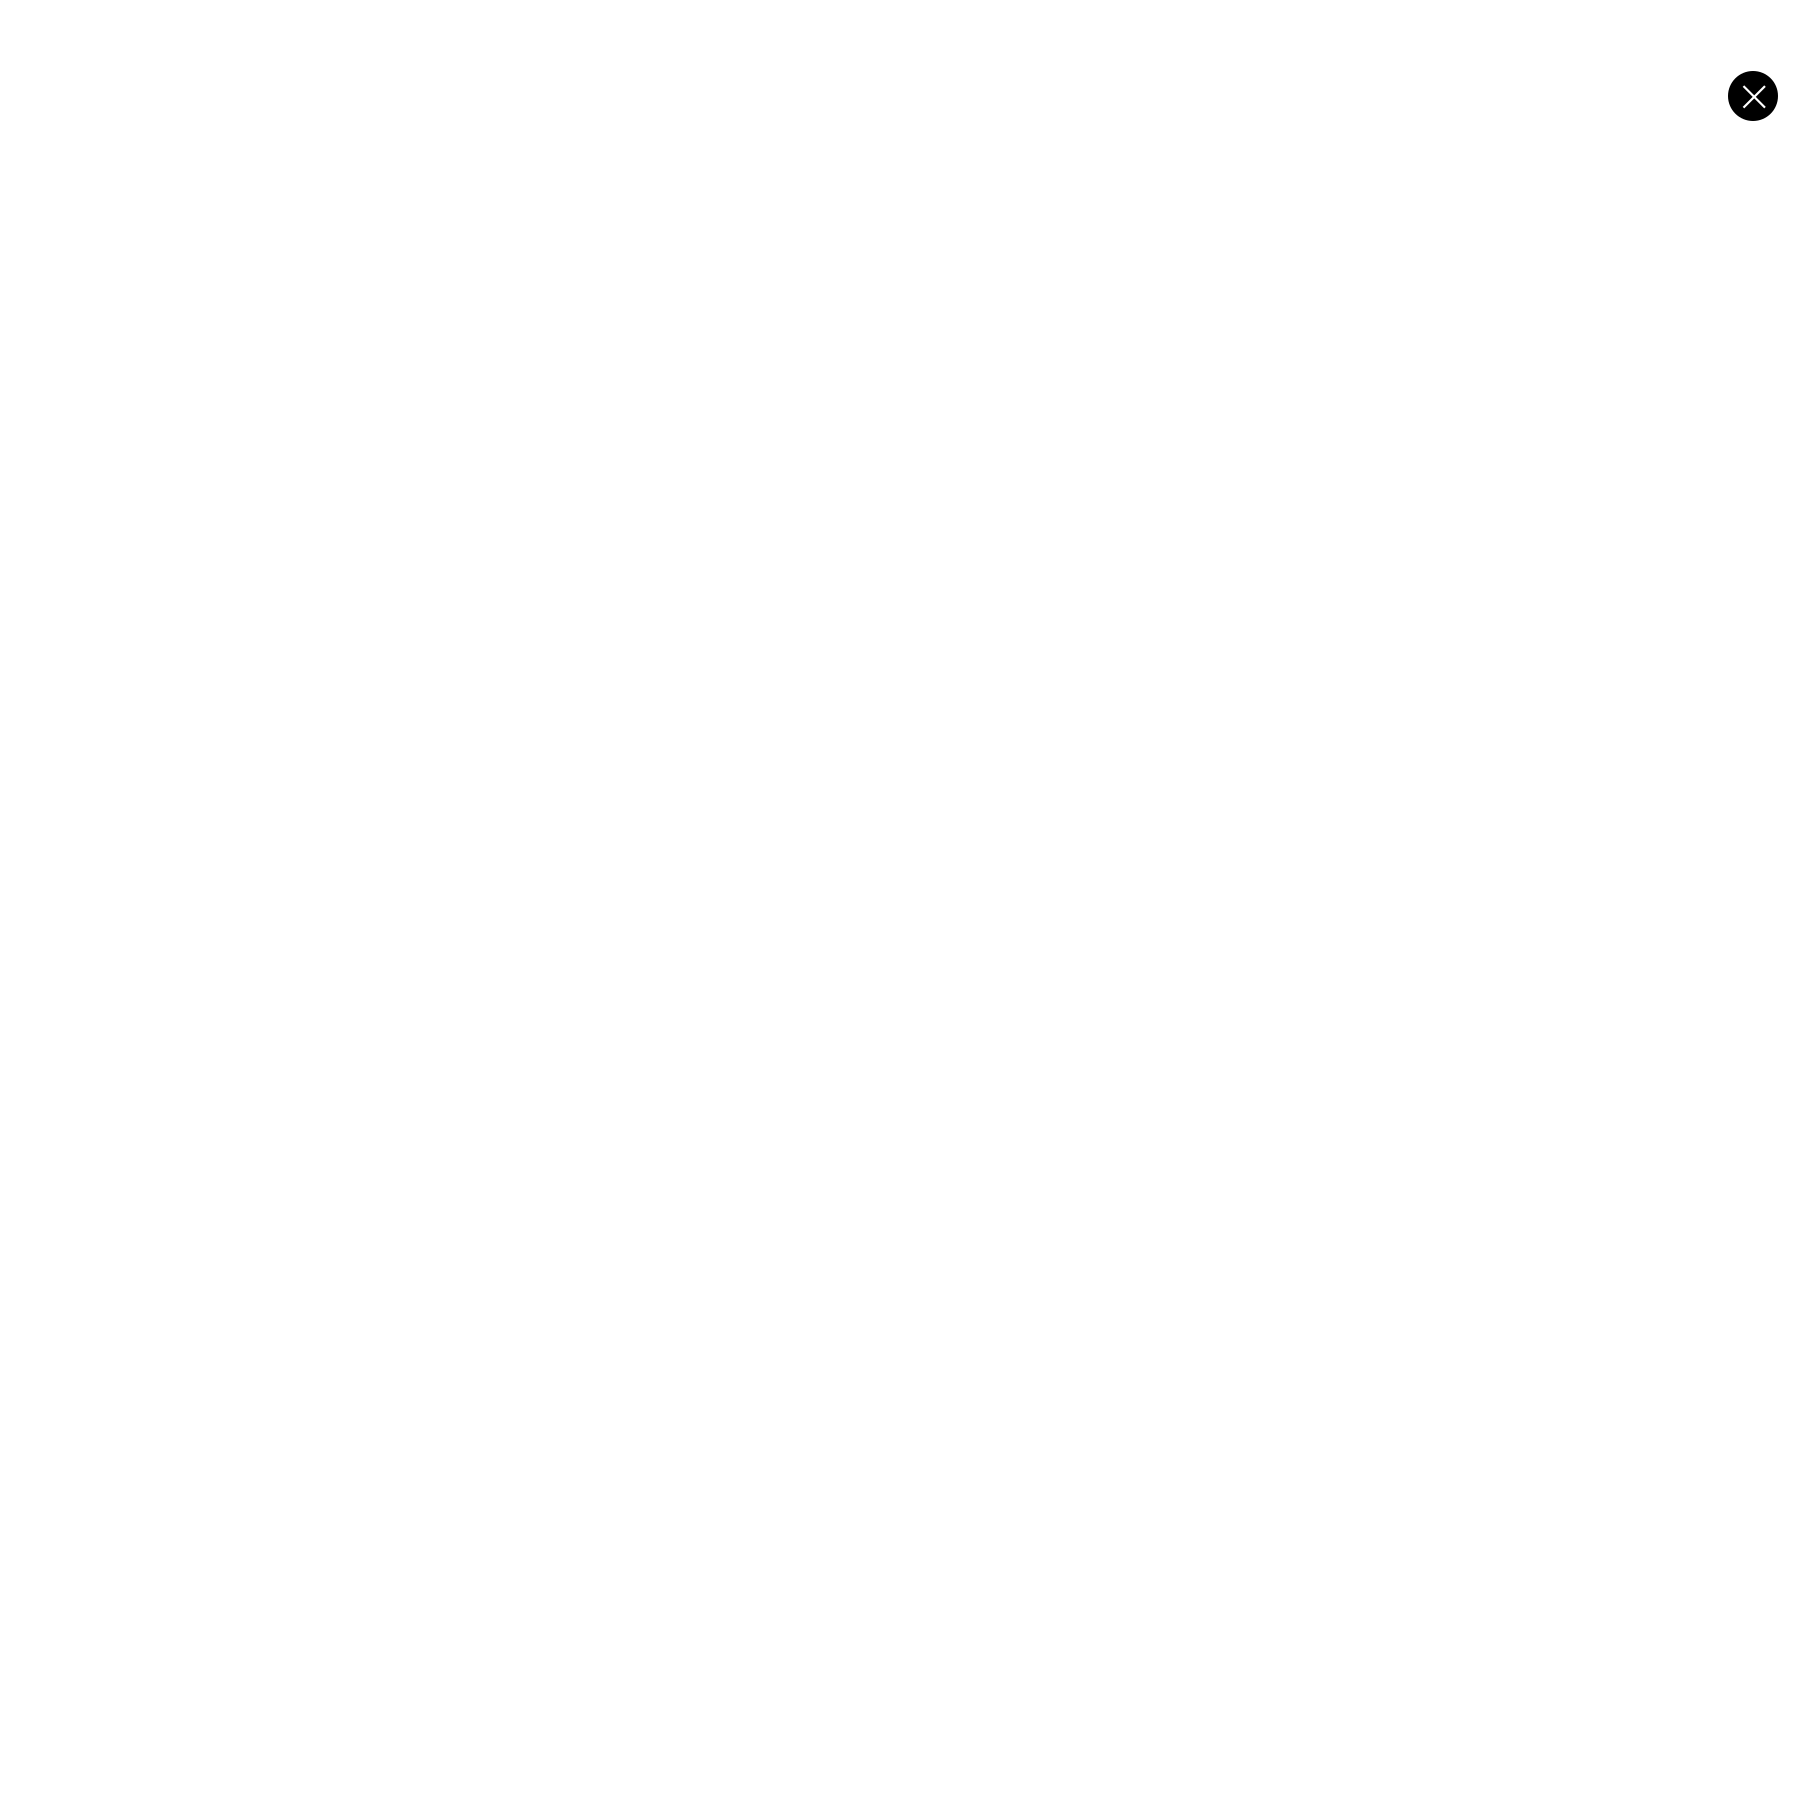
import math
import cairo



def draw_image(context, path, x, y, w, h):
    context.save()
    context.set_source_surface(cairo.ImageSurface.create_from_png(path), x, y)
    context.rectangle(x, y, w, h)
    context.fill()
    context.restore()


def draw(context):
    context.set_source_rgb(1, 1, 1)
    context.paint()
    context.set_source_rgb(0, 0, 0)
    context.arc(1753, 96, 25, 0, 2 * math.pi)
    context.fill()
    draw_image(context, "images/1.png", 1742, 85, 24, 24)


surface = cairo.ImageSurface(cairo.Format.RGB24, 1814, 1820)
context = cairo.Context(surface)
options = cairo.FontOptions()
options.set_hint_metrics(cairo.HintMetrics.OFF)
options.set_hint_style(cairo.HintStyle.NONE)
context.set_font_options(options)
context.set_miter_limit(4)
draw(context)
surface.write_to_png("out.png")
